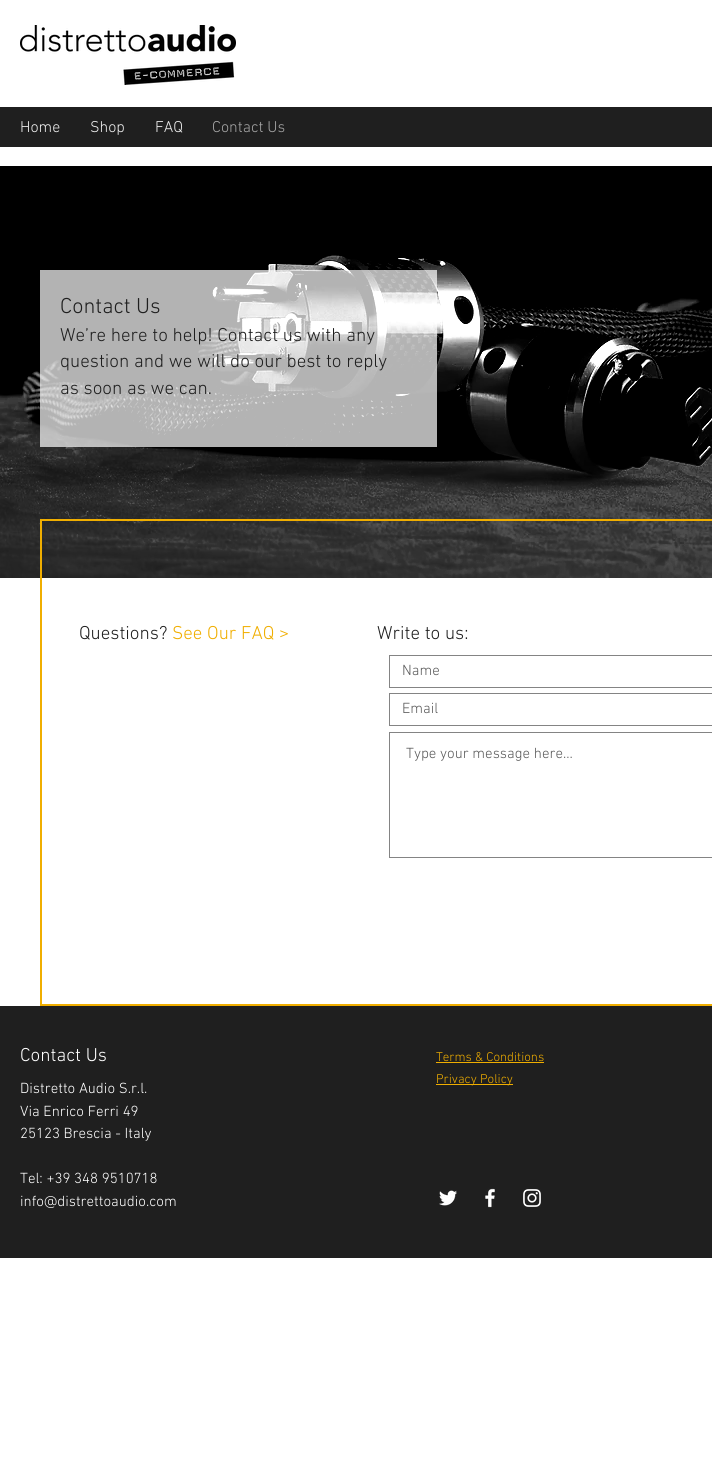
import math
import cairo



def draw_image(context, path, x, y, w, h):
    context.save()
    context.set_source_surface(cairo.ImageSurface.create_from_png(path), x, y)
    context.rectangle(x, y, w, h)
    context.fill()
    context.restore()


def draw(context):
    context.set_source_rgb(1, 1, 1)
    context.paint()
    draw_image(context, "images/1.png", 20, 25, 216, 60)
    context.set_source_rgb(31 / 255, 31 / 255, 31 / 255)
    context.rectangle(0, 107, 712, 40)
    context.fill()
    draw_image(context, "images/2.png", 0, 166, 712, 412)
    context.set_source_rgba(1, 1, 1, 0.7)
    context.rectangle(40, 270, 397, 177)
    context.fill()
    context.rectangle(41, 520, 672, 485)
    context.set_source_rgb(240 / 255, 174 / 255, 0)
    context.stroke()
    context.rectangle(389.5, 655.5, 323, 32)
    context.set_source_rgb(132 / 255, 132 / 255, 132 / 255)
    context.set_line_width(1)
    context.stroke()
    context.rectangle(389.5, 693.5, 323, 32)
    context.stroke()
    context.rectangle(389.5, 732.5, 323, 125)
    context.stroke()
    context.set_source_rgb(31 / 255, 31 / 255, 31 / 255)
    context.rectangle(0, 1006, 712, 252)
    context.fill()
    context.set_source_rgb(240 / 255, 174 / 255, 0)
    context.rectangle(436, 1062, 108, 1)
    context.fill()
    context.rectangle(436, 1084, 77, 1)
    context.fill()
    draw_image(context, "images/3.png", 439, 1190, 18, 16)
    draw_image(context, "images/4.png", 485, 1188, 10, 20)
    draw_image(context, "images/5.png", 523, 1189, 18, 18)
    context.select_font_face("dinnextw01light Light")
    context.set_font_size(16)
    context.set_source_rgb(238 / 255, 238 / 255, 238 / 255)
    context.move_to(20, 132)
    context.show_text("Home")
    context.move_to(90, 132)
    context.show_text("Shop")
    context.move_to(155, 132)
    context.show_text("FAQ")
    context.set_source_rgb(165 / 255, 165 / 255, 165 / 255)
    context.move_to(212, 132)
    context.show_text("Contact Us")
    context.set_font_size(22)
    context.set_source_rgb(31 / 255, 31 / 255, 31 / 255)
    context.move_to(60, 313)
    context.show_text("Contact Us")
    context.set_font_size(19)
    context.move_to(60, 341)
    context.show_text("We’re here to help! Contact us with any")
    context.move_to(60, 367)
    context.show_text("question and we will do our best to reply")
    context.move_to(60, 394)
    context.show_text("as soon as we can.")
    context.move_to(79, 639)
    context.show_text("Questions?")
    context.set_source_rgb(240 / 255, 174 / 255, 0)
    context.move_to(172, 639)
    context.show_text("See Our FAQ >")
    context.set_source_rgb(31 / 255, 31 / 255, 31 / 255)
    context.move_to(377, 639)
    context.show_text("Write to us:")
    context.set_font_size(15)
    context.set_source_rgb(90 / 255, 90 / 255, 90 / 255)
    context.move_to(402, 675)
    context.show_text("Name")
    context.move_to(402, 713)
    context.show_text("Email")
    context.move_to(406, 758)
    context.show_text("Type your message here...")
    context.set_font_size(19)
    context.set_source_rgb(1, 1, 1)
    context.move_to(20, 1061)
    context.show_text("Contact Us")
    context.set_font_size(15)
    context.move_to(20, 1093)
    context.show_text("Distretto Audio S.r.l.")
    context.move_to(20, 1116)
    context.show_text("Via Enrico Ferri 49")
    context.move_to(20, 1138)
    context.show_text("25123 Brescia - Italy")
    context.move_to(20, 1183)
    context.show_text("Tel: +39 348 9510718")
    context.move_to(20, 1206)
    context.show_text("info@distrettoaudio.com")
    context.set_font_size(13)
    context.set_source_rgb(240 / 255, 174 / 255, 0)
    context.move_to(436, 1061)
    context.show_text("Terms & Conditions")
    context.move_to(436, 1083)
    context.show_text("Privacy Policy")


surface = cairo.ImageSurface(cairo.Format.RGB24, 712, 1469)
context = cairo.Context(surface)
options = cairo.FontOptions()
options.set_hint_metrics(cairo.HintMetrics.OFF)
options.set_hint_style(cairo.HintStyle.NONE)
context.set_font_options(options)
context.set_miter_limit(4)
draw(context)
surface.write_to_png("out.png")
